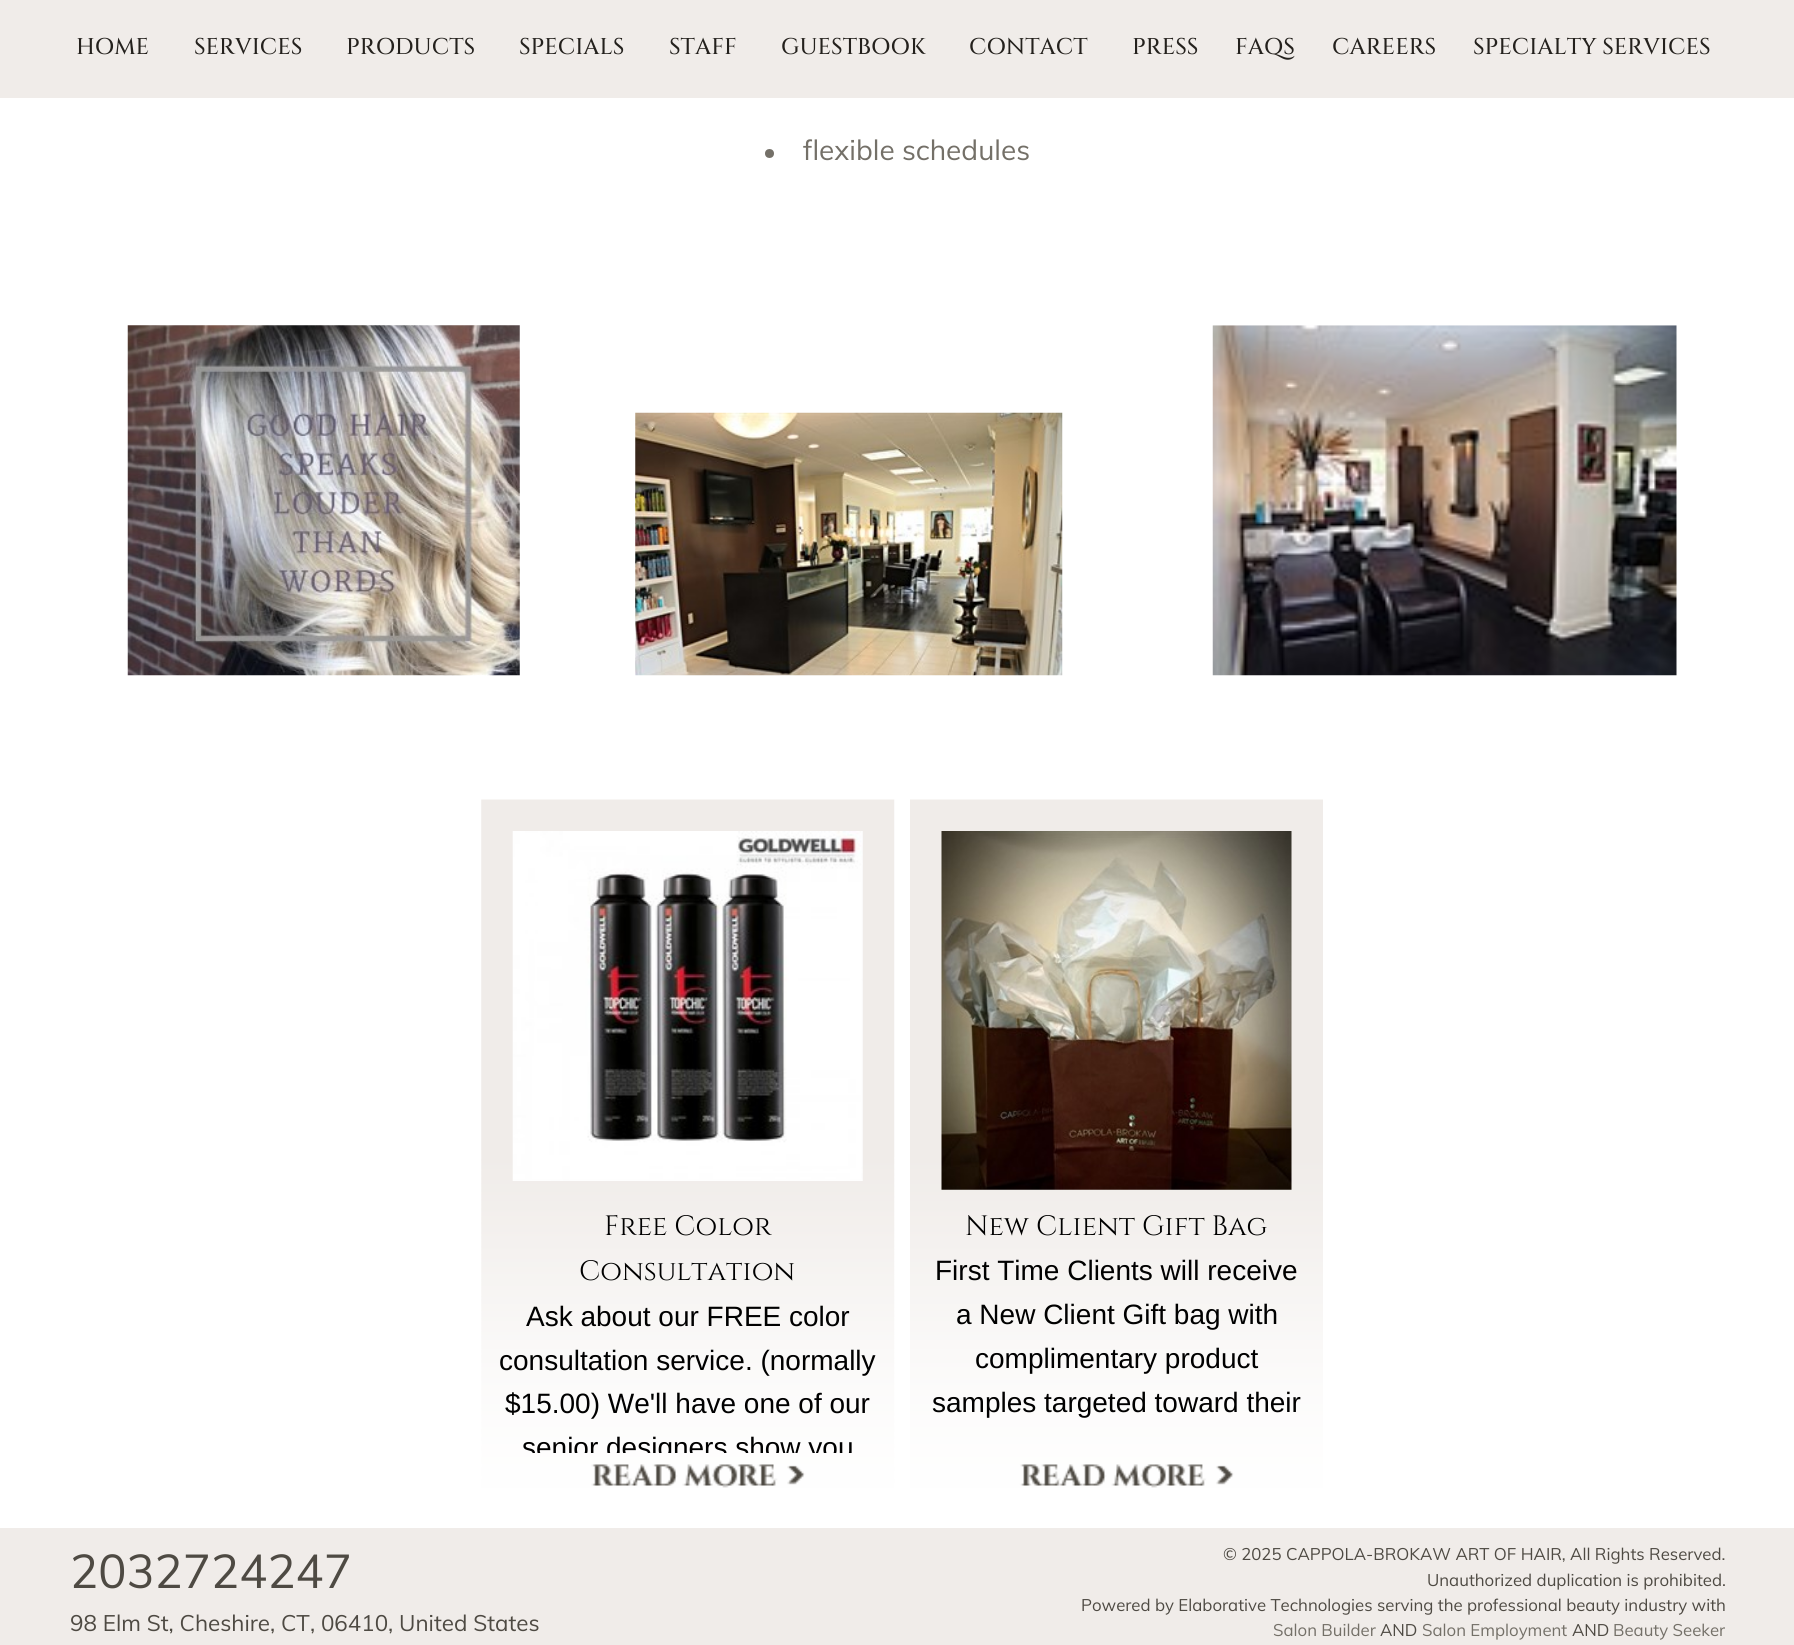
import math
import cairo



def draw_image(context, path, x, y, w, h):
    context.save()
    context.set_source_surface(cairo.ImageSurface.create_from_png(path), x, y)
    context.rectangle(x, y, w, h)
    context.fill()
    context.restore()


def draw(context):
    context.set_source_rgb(1, 1, 1)
    context.paint()
    context.set_source_rgb(240 / 255, 236 / 255, 233 / 255)
    context.rectangle(0, 0, 1794, 98)
    context.fill()
    context.set_source_rgb(116 / 255, 112 / 255, 104 / 255)
    context.arc(769.5, 153.5, 4.5, 0, 2 * math.pi)
    context.fill()
    draw_image(context, "images/1.png", 127, 325, 393, 351)
    draw_image(context, "images/2.png", 635, 412, 428, 264)
    draw_image(context, "images/3.png", 1212, 325, 465, 351)
    draw_image(context, "images/4.png", 481, 799, 414, 689)
    draw_image(context, "images/5.png", 512, 831, 351, 350)
    draw_image(context, "images/6.png", 910, 799, 413, 689)
    draw_image(context, "images/7.png", 941, 831, 351, 359)
    context.set_source_rgb(240 / 255, 236 / 255, 233 / 255)
    context.rectangle(0, 1528, 1794, 117)
    context.fill()
    context.select_font_face("Cinzel Medium")
    context.set_font_size(22.75)
    context.set_source_rgb(36 / 255, 33 / 255, 29 / 255)
    context.move_to(76, 54)
    context.show_text("HOME")
    context.move_to(194, 54)
    context.show_text("SERVICES")
    context.move_to(346, 54)
    context.show_text("PRODUCTS")
    context.move_to(519, 54)
    context.show_text("SPECIALS")
    context.move_to(669, 54)
    context.show_text("STAFF")
    context.move_to(781, 54)
    context.show_text("GUESTBOOK")
    context.move_to(969, 54)
    context.show_text("CONTACT")
    context.move_to(1132, 54)
    context.show_text("PRESS")
    context.move_to(1235, 54)
    context.show_text("FAQS")
    context.move_to(1332, 54)
    context.show_text("CAREERS")
    context.move_to(1473, 54)
    context.show_text("SPECIALTY SERVICES")
    context.select_font_face("Muli")
    context.set_font_size(28)
    context.set_source_rgb(116 / 255, 112 / 255, 104 / 255)
    context.move_to(803, 160)
    context.show_text("flexible schedules")
    context.select_font_face("Cinzel")
    context.set_source_rgb(0, 0, 0)
    context.move_to(604, 1235)
    context.show_text("Free Color")
    context.move_to(579, 1280)
    context.show_text("Consultation")
    context.select_font_face("Liberation Sans")
    context.move_to(526, 1326)
    context.show_text("Ask about our FREE color")
    context.move_to(499, 1370)
    context.show_text("consultation service. (normally")
    context.move_to(505, 1413)
    context.show_text("$15.00) We'll have one of our")
    context.save()
    context.rectangle(495, 1295, 385, 158)
    context.clip()
    context.move_to(522, 1457)
    context.show_text("senior designers show you")
    context.restore()
    context.select_font_face("Cinzel")
    context.move_to(965, 1235)
    context.show_text("New Client Gift Bag")
    context.select_font_face("Liberation Sans")
    context.move_to(935, 1280)
    context.show_text("First Time Clients will receive")
    context.move_to(956, 1324)
    context.show_text("a New Client Gift bag with")
    context.move_to(975, 1368)
    context.show_text("complimentary product")
    context.move_to(932, 1412)
    context.show_text("samples targeted toward their")
    context.select_font_face("Muli")
    context.set_font_size(47)
    context.set_source_rgb(78 / 255, 74 / 255, 67 / 255)
    context.move_to(70, 1588)
    context.show_text("2032724247")
    context.set_font_size(22.4)
    context.move_to(70, 1631)
    context.show_text("98 Elm St, Cheshire, CT, 06410, United States")
    context.set_font_size(16.8)
    context.move_to(1223, 1560)
    context.show_text("© 2025 CAPPOLA-BROKAW ART OF HAIR, All Rights Reserved.")
    context.move_to(1427, 1586)
    context.show_text("Unauthorized duplication is prohibited.")
    context.move_to(1081, 1611)
    context.show_text("Powered by Elaborative Technologies serving the professional beauty industry with")
    context.set_source_rgb(116 / 255, 112 / 255, 104 / 255)
    context.move_to(1273, 1636)
    context.show_text("Salon Builder")
    context.set_source_rgb(78 / 255, 74 / 255, 67 / 255)
    context.move_to(1380, 1636)
    context.show_text("AND")
    context.set_source_rgb(116 / 255, 112 / 255, 104 / 255)
    context.move_to(1422, 1636)
    context.show_text("Salon Employment")
    context.set_source_rgb(78 / 255, 74 / 255, 67 / 255)
    context.move_to(1572, 1636)
    context.show_text("AND")
    context.set_source_rgb(116 / 255, 112 / 255, 104 / 255)
    context.move_to(1613, 1636)
    context.show_text("Beauty Seeker")


surface = cairo.ImageSurface(cairo.Format.RGB24, 1794, 1645)
context = cairo.Context(surface)
options = cairo.FontOptions()
options.set_hint_metrics(cairo.HintMetrics.OFF)
options.set_hint_style(cairo.HintStyle.NONE)
context.set_font_options(options)
context.set_miter_limit(4)
draw(context)
surface.write_to_png("out.png")
